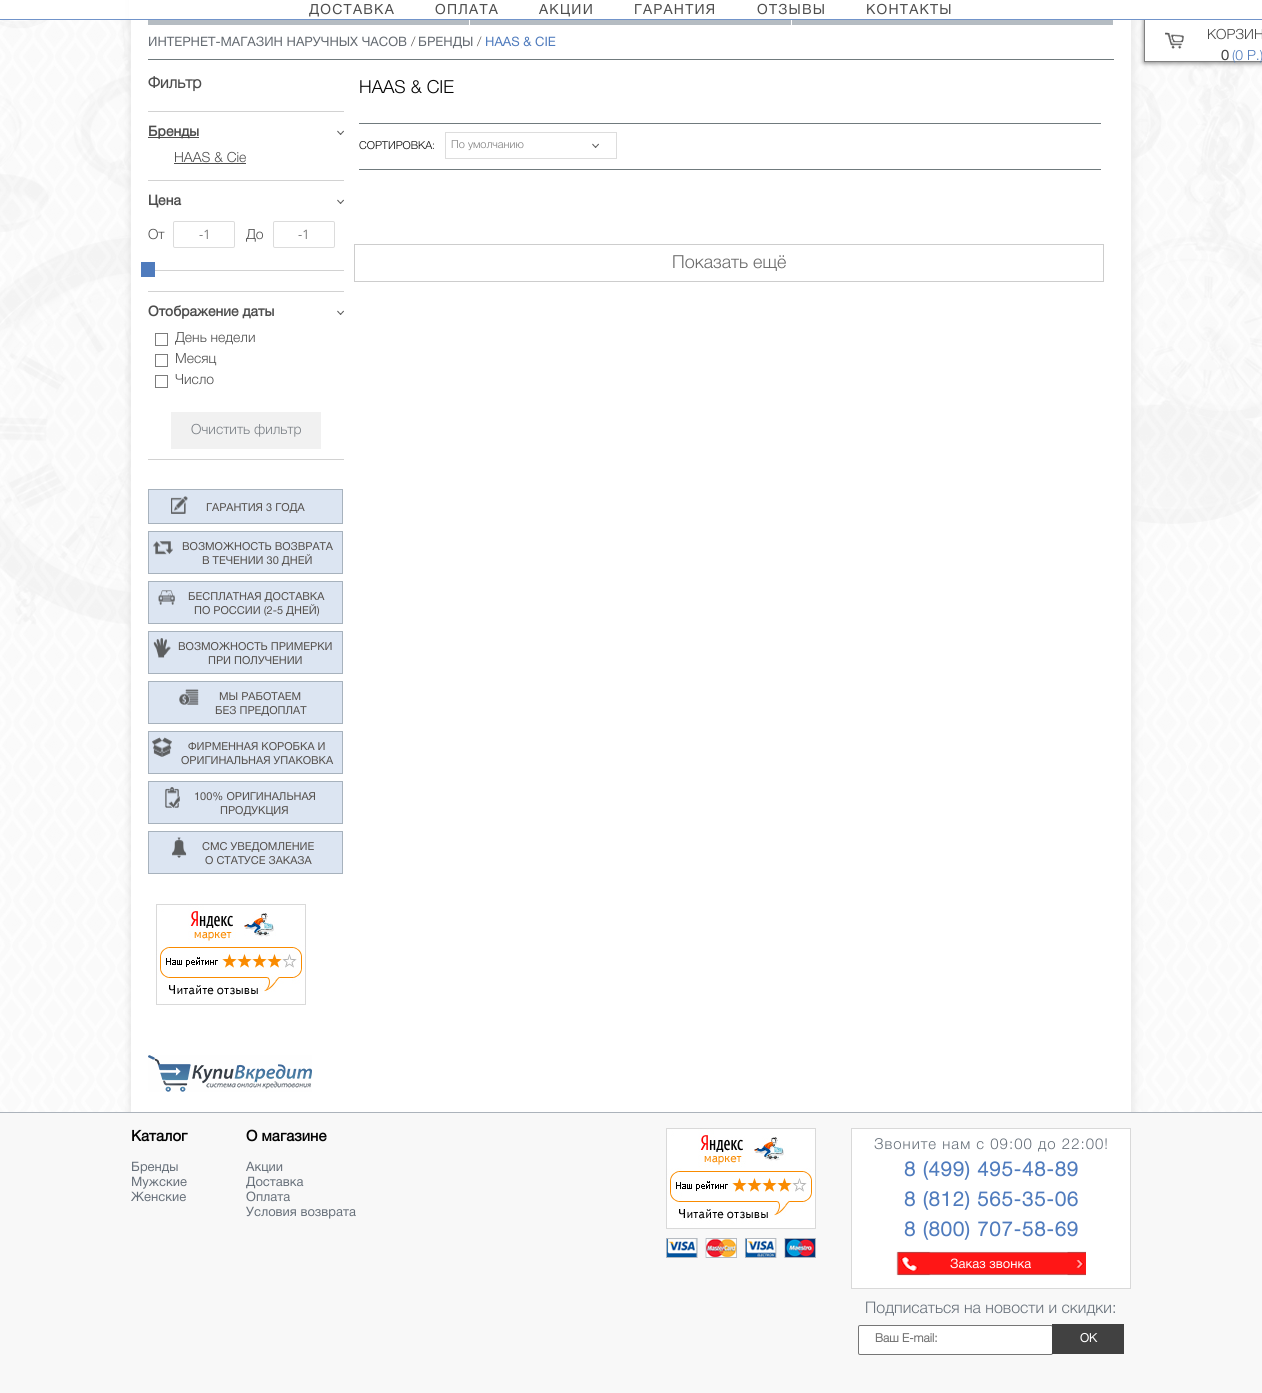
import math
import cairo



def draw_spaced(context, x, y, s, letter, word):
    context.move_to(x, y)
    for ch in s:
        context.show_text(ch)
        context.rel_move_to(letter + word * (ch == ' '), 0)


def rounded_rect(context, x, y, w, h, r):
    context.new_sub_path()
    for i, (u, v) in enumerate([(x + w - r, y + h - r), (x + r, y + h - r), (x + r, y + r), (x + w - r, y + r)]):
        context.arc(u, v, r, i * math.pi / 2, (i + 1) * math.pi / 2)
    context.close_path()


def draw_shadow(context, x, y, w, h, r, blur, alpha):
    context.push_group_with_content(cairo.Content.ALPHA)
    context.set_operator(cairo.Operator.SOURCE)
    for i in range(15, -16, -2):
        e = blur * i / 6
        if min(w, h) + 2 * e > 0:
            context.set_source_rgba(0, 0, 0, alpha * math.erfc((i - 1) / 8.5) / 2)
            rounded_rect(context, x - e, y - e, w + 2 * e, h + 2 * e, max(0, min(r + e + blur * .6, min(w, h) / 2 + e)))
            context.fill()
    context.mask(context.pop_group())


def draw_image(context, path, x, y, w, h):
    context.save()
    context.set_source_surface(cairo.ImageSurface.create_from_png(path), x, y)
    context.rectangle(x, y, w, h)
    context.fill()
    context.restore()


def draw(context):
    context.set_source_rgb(1, 1, 1)
    context.paint()
    draw_image(context, "images/1.png", 0, 20, 1262, 1092)
    context.set_source_rgb(239 / 255, 239 / 255, 239 / 255)
    draw_shadow(context, 134, -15, 1000, 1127, 0, 5, 1)
    context.set_source_rgb(0, 0, 0)
    draw_shadow(context, 1144, 19, 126, 44, 0, 2.5, 0.5)
    context.set_source_rgb(1, 1, 1)
    context.rectangle(1145, 20, 117, 41)
    context.fill()
    draw_image(context, "images/13.png", 1165, 32, 19, 17)
    context.rectangle(1144.5, 18.5, 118, 43)
    context.set_source_rgb(128 / 255, 128 / 255, 128 / 255)
    context.set_line_width(1)
    context.stroke()
    context.set_source_rgb(1, 1, 1)
    context.rectangle(129, 0, 1133, 19)
    context.fill()
    context.set_source_rgb(113 / 255, 148 / 255, 202 / 255)
    context.rectangle(0, 19, 1262, 1)
    context.fill()
    context.set_source_rgb(1, 1, 1)
    context.rectangle(131, 20, 1000, 1092)
    context.fill()
    context.set_source_rgb(181 / 255, 188 / 255, 194 / 255)
    context.rectangle(148, 20, 321, 5)
    context.fill()
    context.rectangle(470, 20, 321, 5)
    context.fill()
    context.rectangle(792, 20, 321, 5)
    context.fill()
    context.set_source_rgb(112 / 255, 122 / 255, 125 / 255)
    context.rectangle(148, 59, 966, 1)
    context.fill()
    context.set_source_rgb(210 / 255, 210 / 255, 210 / 255)
    context.rectangle(148, 111, 196, 1)
    context.fill()
    draw_image(context, "images/2.png", 337, 130, 7, 5)
    context.set_source_rgb(77 / 255, 77 / 255, 77 / 255)
    context.rectangle(148, 137, 51, 1)
    context.fill()
    context.rectangle(174, 163, 72, 1)
    context.fill()
    context.set_source_rgb(210 / 255, 210 / 255, 210 / 255)
    context.rectangle(148, 459, 196, 1)
    context.fill()
    context.rectangle(148, 180, 196, 1)
    context.fill()
    draw_image(context, "images/2.png", 337, 199, 7, 5)
    rounded_rect(context, 173.5, 221.5, 61, 26, 1.5)
    context.set_source_rgb(220 / 255, 220 / 255, 220 / 255)
    context.stroke()
    rounded_rect(context, 273.5, 221.5, 61, 26, 1.5)
    context.stroke()
    context.set_source_rgb(210 / 255, 210 / 255, 210 / 255)
    context.rectangle(148, 270, 196, 1)
    context.fill()
    context.set_source_rgb(79 / 255, 123 / 255, 189 / 255)
    context.rectangle(141, 262, 14, 15)
    context.fill()
    context.set_source_rgb(210 / 255, 210 / 255, 210 / 255)
    context.rectangle(148, 291, 196, 1)
    context.fill()
    draw_image(context, "images/2.png", 337, 310, 7, 5)
    context.rectangle(155.5, 333.5, 12, 12)
    context.set_source_rgb(124 / 255, 124 / 255, 124 / 255)
    context.stroke()
    context.rectangle(155.5, 354.5, 12, 12)
    context.stroke()
    context.rectangle(155.5, 375.5, 12, 12)
    context.stroke()
    context.set_source_rgb(241 / 255, 241 / 255, 241 / 255)
    context.rectangle(171, 412, 150, 37)
    context.fill()
    context.set_source_rgb(220 / 255, 229 / 255, 242 / 255)
    context.rectangle(148.5, 489.5, 194, 34)
    context.fill_preserve()
    context.set_source_rgb(167 / 255, 178 / 255, 189 / 255)
    context.stroke()
    draw_image(context, "images/3.png", 171, 496, 17, 18)
    context.set_source_rgb(220 / 255, 229 / 255, 242 / 255)
    context.rectangle(148.5, 531.5, 194, 42)
    context.fill_preserve()
    context.set_source_rgb(167 / 255, 178 / 255, 189 / 255)
    context.stroke()
    draw_image(context, "images/4.png", 153, 541, 20, 14)
    context.set_source_rgb(220 / 255, 229 / 255, 242 / 255)
    context.rectangle(148.5, 581.5, 194, 42)
    context.fill_preserve()
    context.set_source_rgb(167 / 255, 178 / 255, 189 / 255)
    context.stroke()
    draw_image(context, "images/5.png", 158, 590, 17, 15)
    context.set_source_rgb(220 / 255, 229 / 255, 242 / 255)
    context.rectangle(148.5, 631.5, 194, 42)
    context.fill_preserve()
    context.set_source_rgb(167 / 255, 178 / 255, 189 / 255)
    context.stroke()
    draw_image(context, "images/6.png", 153, 638, 18, 20)
    context.set_source_rgb(220 / 255, 229 / 255, 242 / 255)
    context.rectangle(148.5, 681.5, 194, 42)
    context.fill_preserve()
    context.set_source_rgb(167 / 255, 178 / 255, 189 / 255)
    context.stroke()
    draw_image(context, "images/7.png", 179, 689, 20, 16)
    context.set_source_rgb(220 / 255, 229 / 255, 242 / 255)
    context.rectangle(148.5, 731.5, 194, 42)
    context.fill_preserve()
    context.set_source_rgb(167 / 255, 178 / 255, 189 / 255)
    context.stroke()
    draw_image(context, "images/8.png", 152, 737, 20, 20)
    context.set_source_rgb(220 / 255, 229 / 255, 242 / 255)
    context.rectangle(148.5, 781.5, 194, 42)
    context.fill_preserve()
    context.set_source_rgb(167 / 255, 178 / 255, 189 / 255)
    context.stroke()
    draw_image(context, "images/9.png", 165, 787, 15, 21)
    context.set_source_rgb(220 / 255, 229 / 255, 242 / 255)
    context.rectangle(148.5, 831.5, 194, 42)
    context.fill_preserve()
    context.set_source_rgb(167 / 255, 178 / 255, 189 / 255)
    context.stroke()
    draw_image(context, "images/10.png", 172, 837, 15, 21)
    draw_image(context, "images/11.png", 156, 904, 150, 101)
    draw_image(context, "images/12.png", 148, 1055, 164, 37)
    context.set_source_rgb(112 / 255, 122 / 255, 125 / 255)
    context.rectangle(359, 123, 742, 1)
    context.fill()
    context.rectangle(359, 169, 742, 1)
    context.fill()
    context.rectangle(445.5, 132.5, 171, 26)
    context.set_source_rgb(221 / 255, 221 / 255, 221 / 255)
    context.stroke()
    draw_image(context, "images/2.png", 592, 143, 7, 5)
    context.rectangle(354.5, 244.5, 749, 37)
    context.set_source_rgb(205 / 255, 205 / 255, 205 / 255)
    context.stroke()
    context.set_source_rgb(248 / 255, 248 / 255, 248 / 255)
    context.rectangle(0, 1113, 1262, 280)
    context.fill()
    context.set_source_rgb(172 / 255, 179 / 255, 187 / 255)
    context.rectangle(0, 1112, 1262, 1)
    context.fill()
    draw_image(context, "images/11.png", 666, 1128, 150, 101)
    draw_image(context, "images/14.png", 666, 1238, 150, 20)
    context.set_source_rgb(1, 1, 1)
    context.rectangle(851.5, 1128.5, 279, 160)
    context.fill_preserve()
    context.set_source_rgb(217 / 255, 217 / 255, 217 / 255)
    context.stroke()
    draw_image(context, "images/15.png", 896, 1251, 190, 25)
    context.set_source_rgb(1, 1, 1)
    rounded_rect(context, 858.5, 1325.5, 194, 29, 1.5)
    context.fill_preserve()
    context.set_source_rgb(118 / 255, 118 / 255, 118 / 255)
    context.stroke()
    context.set_source_rgb(65 / 255, 65 / 255, 65 / 255)
    context.rectangle(1052, 1324, 72, 30)
    context.fill()
    context.select_font_face("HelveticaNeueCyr")
    context.set_font_size(14)
    context.set_source_rgb(77 / 255, 77 / 255, 77 / 255)
    draw_spaced(context, 309, 14, "ДОСТАВКА", 1.25, 0)
    draw_spaced(context, 435, 14, "ОПЛАТА", 1.25, 0)
    draw_spaced(context, 539, 14, "АКЦИИ", 1.25, 0)
    draw_spaced(context, 634, 14, "ГАРАНТИЯ", 1.25, 0)
    draw_spaced(context, 757, 14, "ОТЗЫВЫ", 1.25, 0)
    draw_spaced(context, 866, 14, "КОНТАКТЫ", 1.25, 0)
    context.set_font_size(13)
    context.set_source_rgb(101 / 255, 107 / 255, 114 / 255)
    context.move_to(148, 46)
    context.show_text("ИНТЕРНЕТ-МАГАЗИН НАРУЧНЫХ ЧАСОВ")
    context.select_font_face("HelveticaNeueCyr Light")
    context.set_source_rgb(84 / 255, 79 / 255, 75 / 255)
    context.move_to(411, 46)
    context.show_text("/")
    context.select_font_face("HelveticaNeueCyr")
    context.set_source_rgb(101 / 255, 107 / 255, 114 / 255)
    context.move_to(418, 46)
    context.show_text("БРЕНДЫ")
    context.select_font_face("HelveticaNeueCyr Light")
    context.set_source_rgb(84 / 255, 79 / 255, 75 / 255)
    context.move_to(477, 46)
    context.show_text("/")
    context.select_font_face("HelveticaNeueCyr")
    context.set_source_rgb(79 / 255, 123 / 255, 189 / 255)
    context.move_to(485, 46)
    context.show_text("HAAS & CIE")
    context.select_font_face("HelveticaNeueCyr", cairo.FontSlant.NORMAL, cairo.FontWeight.BOLD)
    context.set_font_size(16)
    context.set_source_rgb(77 / 255, 77 / 255, 77 / 255)
    context.move_to(148, 88)
    context.show_text("Фильтр")
    context.select_font_face("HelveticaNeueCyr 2", cairo.FontSlant.NORMAL, cairo.FontWeight.BOLD)
    context.set_font_size(14)
    context.move_to(148, 136)
    context.show_text("Бренды")
    context.select_font_face("HelveticaNeueCyr Light")
    context.move_to(174, 162)
    context.show_text("HAAS & Cie")
    context.select_font_face("HelveticaNeueCyr 2", cairo.FontSlant.NORMAL, cairo.FontWeight.BOLD)
    context.move_to(148, 205)
    context.show_text("Цена")
    context.select_font_face("HelveticaNeueCyr Light")
    context.move_to(148, 239)
    context.show_text("От")
    context.select_font_face("Open Sans")
    context.set_font_size(13)
    context.set_source_rgb(125 / 255, 125 / 255, 125 / 255)
    context.move_to(199, 239)
    context.show_text("-1")
    context.select_font_face("HelveticaNeueCyr Light")
    context.set_font_size(14)
    context.set_source_rgb(77 / 255, 77 / 255, 77 / 255)
    context.move_to(246, 239)
    context.show_text("До")
    context.select_font_face("Open Sans")
    context.set_font_size(13)
    context.set_source_rgb(125 / 255, 125 / 255, 125 / 255)
    context.move_to(298, 239)
    context.show_text("-1")
    context.select_font_face("HelveticaNeueCyr 2", cairo.FontSlant.NORMAL, cairo.FontWeight.BOLD)
    context.set_font_size(14)
    context.set_source_rgb(77 / 255, 77 / 255, 77 / 255)
    context.move_to(148, 316)
    context.show_text("Отображение даты")
    context.select_font_face("HelveticaNeueCyr Light")
    context.move_to(175, 342)
    context.show_text("День недели")
    context.move_to(175, 363)
    context.show_text("Месяц")
    context.move_to(175, 384)
    context.show_text("Число")
    context.set_source_rgb(122 / 255, 127 / 255, 133 / 255)
    context.move_to(191, 434)
    context.show_text("Очистить фильтр")
    context.select_font_face("HelveticaNeueCyr")
    context.set_font_size(11)
    context.set_source_rgb(84 / 255, 79 / 255, 75 / 255)
    context.move_to(206, 511)
    context.show_text("ГАРАНТИЯ 3 ГОДА")
    context.move_to(182, 550)
    context.show_text("ВОЗМОЖНОСТЬ ВОЗВРАТА")
    context.move_to(202, 564)
    context.show_text("В ТЕЧЕНИИ 30 ДНЕЙ")
    context.move_to(188, 600)
    context.show_text("БЕСПЛАТНАЯ ДОСТАВКА")
    context.move_to(194, 614)
    context.show_text("ПО РОССИИ (2-5 ДНЕЙ)")
    context.move_to(178, 650)
    context.show_text("ВОЗМОЖНОСТЬ ПРИМЕРКИ")
    context.move_to(208, 664)
    context.show_text("ПРИ ПОЛУЧЕНИИ")
    context.move_to(219, 700)
    context.show_text("МЫ РАБОТАЕМ")
    context.move_to(215, 714)
    context.show_text("БЕЗ ПРЕДОПЛАТ")
    context.move_to(188, 750)
    context.show_text("ФИРМЕННАЯ КОРОБКА И")
    context.move_to(181, 764)
    context.show_text("ОРИГИНАЛЬНАЯ УПАКОВКА")
    context.move_to(194, 800)
    context.show_text("100% ОРИГИНАЛЬНАЯ")
    context.move_to(220, 814)
    context.show_text("ПРОДУКЦИЯ")
    context.move_to(202, 850)
    context.show_text("СМС УВЕДОМЛЕНИЕ")
    context.move_to(205, 864)
    context.show_text("О СТАТУСЕ ЗАКАЗА")
    context.select_font_face("HelveticaNeueCyr Light")
    context.set_font_size(18)
    context.set_source_rgb(2 / 255, 2 / 255, 2 / 255)
    context.move_to(359, 93)
    context.show_text("HAAS & CIE")
    context.set_font_size(11)
    context.move_to(359, 149)
    context.show_text("СОРТИРОВКА:")
    context.set_source_rgb(125 / 255, 125 / 255, 125 / 255)
    context.move_to(451, 148)
    context.show_text("По умолчанию")
    context.set_font_size(18)
    context.set_source_rgb(107 / 255, 107 / 255, 107 / 255)
    context.move_to(672, 268)
    context.show_text("Показать ещё")
    context.set_font_size(14)
    context.set_source_rgb(69 / 255, 69 / 255, 69 / 255)
    context.move_to(1207, 39)
    context.show_text("КОРЗИН")
    context.select_font_face("HelveticaNeueCyr", cairo.FontSlant.NORMAL, cairo.FontWeight.BOLD)
    context.move_to(1221, 60)
    context.show_text("0")
    context.select_font_face("HelveticaNeueCyr Light")
    context.set_source_rgb(79 / 255, 123 / 255, 189 / 255)
    context.move_to(1232, 60)
    context.show_text("(0 Р.)")
    context.select_font_face("HelveticaNeueCyr 2", cairo.FontSlant.NORMAL, cairo.FontWeight.BOLD)
    context.set_font_size(15)
    context.set_source_rgb(2 / 255, 2 / 255, 2 / 255)
    context.move_to(131, 1141)
    context.show_text("Каталог")
    context.select_font_face("HelveticaNeueCyr")
    context.set_font_size(13)
    context.set_source_rgb(103 / 255, 112 / 255, 122 / 255)
    context.move_to(131, 1171)
    context.show_text("Бренды")
    context.move_to(131, 1186)
    context.show_text("Мужские")
    context.move_to(131, 1201)
    context.show_text("Женские")
    context.select_font_face("HelveticaNeueCyr 2", cairo.FontSlant.NORMAL, cairo.FontWeight.BOLD)
    context.set_font_size(15)
    context.set_source_rgb(2 / 255, 2 / 255, 2 / 255)
    context.move_to(246, 1141)
    context.show_text("О магазине")
    context.select_font_face("HelveticaNeueCyr")
    context.set_font_size(13)
    context.set_source_rgb(103 / 255, 112 / 255, 122 / 255)
    context.move_to(246, 1171)
    context.show_text("Акции")
    context.move_to(246, 1186)
    context.show_text("Доставка")
    context.move_to(246, 1201)
    context.show_text("Оплата")
    context.move_to(246, 1216)
    context.show_text("Условия возврата")
    context.select_font_face("HelveticaNeueCyr Light")
    context.set_font_size(15)
    draw_spaced(context, 874, 1149, "Звоните нам с 09:00 до 22:00!", 1, 0)
    context.select_font_face("HelveticaNeueCyr", cairo.FontSlant.NORMAL, cairo.FontWeight.BOLD)
    context.set_font_size(20)
    context.set_source_rgb(79 / 255, 123 / 255, 189 / 255)
    draw_spaced(context, 904, 1176, "8 (499) 495-48-89", 1, 0)
    draw_spaced(context, 904, 1206, "8 (812) 565-35-06", 1, 0)
    draw_spaced(context, 904, 1236, "8 (800) 707-58-69", 1, 0)
    context.select_font_face("HelveticaNeueCyr")
    context.set_font_size(13)
    context.set_source_rgb(1, 1, 1)
    context.move_to(950, 1268)
    context.show_text("Заказ звонка")
    context.select_font_face("HelveticaNeueCyr Light")
    context.set_font_size(16)
    context.set_source_rgb(103 / 255, 112 / 255, 122 / 255)
    context.move_to(865, 1313)
    context.show_text("Подписаться на новости и скидки:")
    context.select_font_face("HelveticaNeueCyr", cairo.FontSlant.NORMAL, cairo.FontWeight.BOLD)
    context.set_font_size(12)
    context.set_source_rgb(117 / 255, 117 / 255, 117 / 255)
    context.move_to(875, 1342)
    context.show_text("Ваш E-mail:")
    context.set_source_rgb(1, 1, 1)
    context.move_to(1080, 1342)
    context.show_text("OK")


surface = cairo.ImageSurface(cairo.Format.RGB24, 1262, 1393)
context = cairo.Context(surface)
options = cairo.FontOptions()
options.set_hint_metrics(cairo.HintMetrics.OFF)
options.set_hint_style(cairo.HintStyle.NONE)
context.set_font_options(options)
context.set_miter_limit(4)
draw(context)
surface.write_to_png("out.png")
